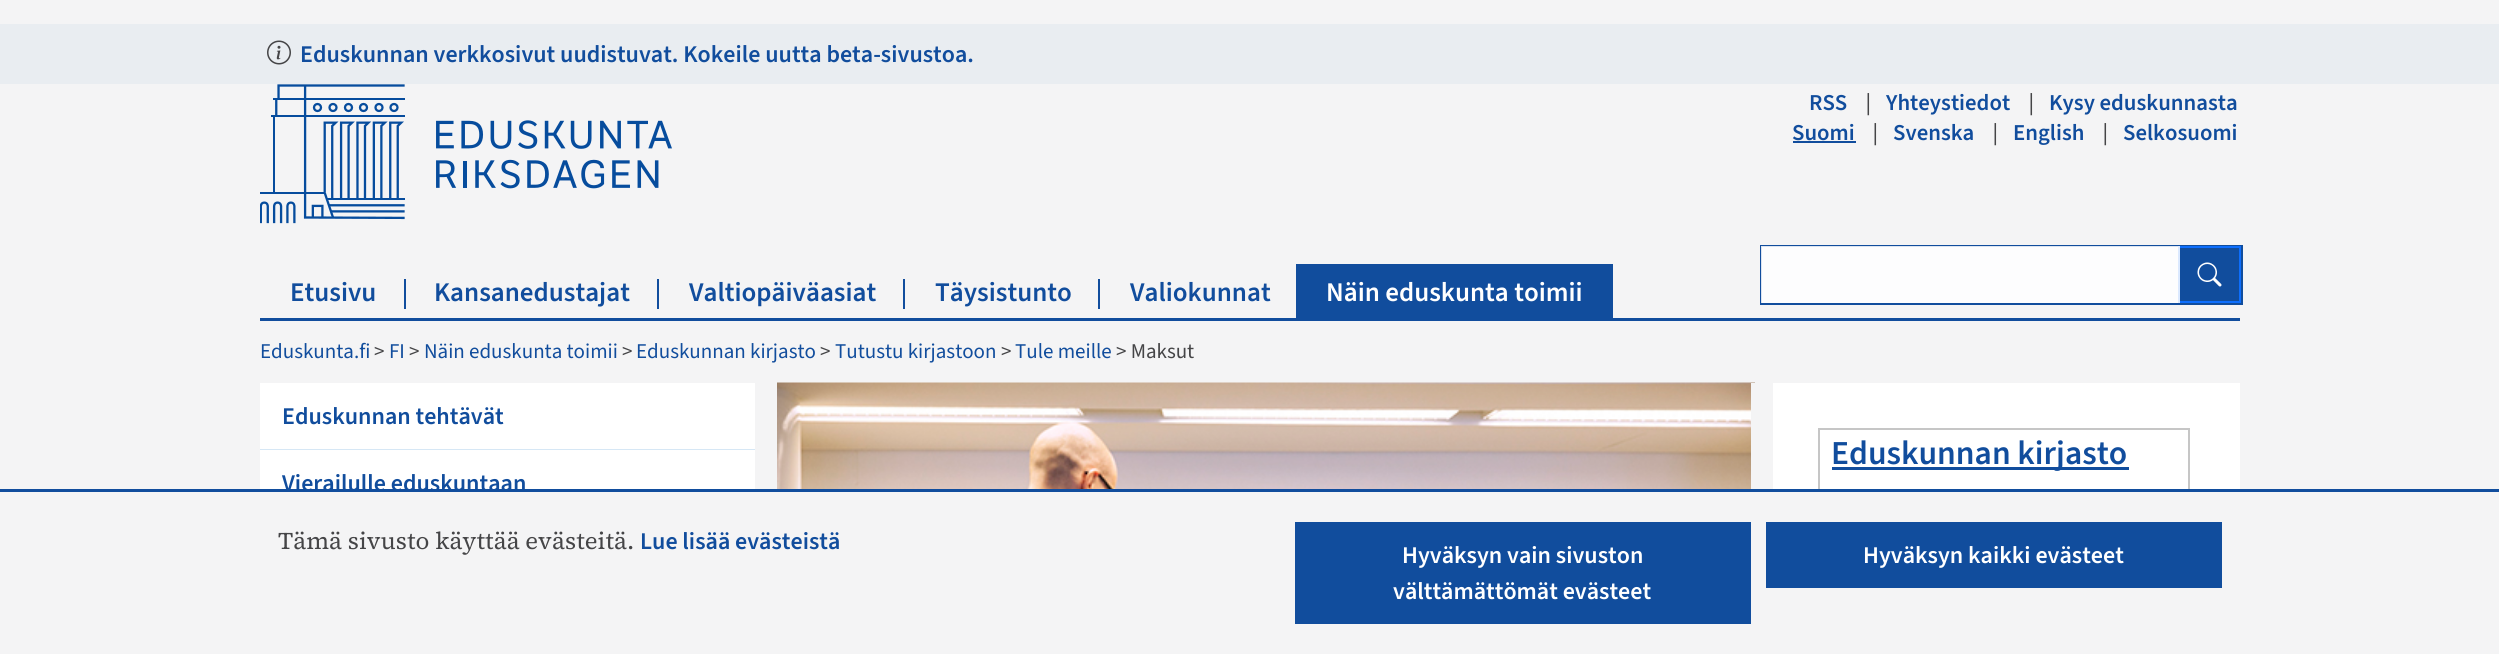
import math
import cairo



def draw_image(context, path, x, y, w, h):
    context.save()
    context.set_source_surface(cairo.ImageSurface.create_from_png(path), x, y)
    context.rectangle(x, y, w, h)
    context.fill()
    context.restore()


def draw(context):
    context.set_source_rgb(244 / 255, 244 / 255, 245 / 255)
    context.paint()
    context.set_source_rgb(233 / 255, 237 / 255, 241 / 255)
    context.rectangle(0, 24, 2499, 60)
    context.fill()
    draw_image(context, "images/1.png", 267, 40, 24, 25)
    draw_image(context, "images/2.png", 260, 84, 412, 140)
    context.set_source_rgb(17 / 255, 77 / 255, 157 / 255)
    context.rectangle(1793, 141, 63, 2)
    context.fill()
    context.rectangle(1761, 246, 481, 58)
    context.stroke()
    context.rectangle(2179, 247, 61, 55)
    context.fill_preserve()
    context.set_source_rgb(13 / 255, 110 / 255, 253 / 255)
    context.stroke()
    context.set_source_rgba(1, 1, 1, 0.85)
    context.rectangle(1761, 246, 419, 57)
    context.fill()
    draw_image(context, "images/3.png", 2197, 262, 25, 25)
    context.set_source_rgb(17 / 255, 77 / 255, 157 / 255)
    context.rectangle(260, 318, 1980, 3)
    context.fill()
    context.rectangle(404, 279, 2, 30)
    context.fill()
    context.rectangle(657, 279, 2, 30)
    context.fill()
    context.rectangle(903, 279, 2, 30)
    context.fill()
    context.rectangle(1098, 279, 2, 30)
    context.fill()
    context.rectangle(1296, 264, 317, 54)
    context.fill()
    context.set_source_rgb(1, 1, 1)
    context.rectangle(260, 383, 495, 66)
    context.fill()
    context.set_source_rgb(214 / 255, 231 / 255, 245 / 255)
    context.rectangle(260, 449, 495, 1)
    context.fill()
    context.set_source_rgb(1, 1, 1)
    context.rectangle(260, 450, 495, 39)
    context.fill()
    context.rectangle(1773, 383, 467, 106)
    context.fill()
    draw_image(context, "images/4.png", 777, 382, 978, 107)
    context.set_source_rgb(244 / 255, 244 / 255, 245 / 255)
    context.rectangle(1751, 383, 4, 106)
    context.fill()
    context.rectangle(1819, 429, 370, 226)
    context.set_source_rgb(198 / 255, 198 / 255, 198 / 255)
    context.stroke()
    context.set_source_rgb(17 / 255, 77 / 255, 157 / 255)
    context.rectangle(1832, 467, 297, 3)
    context.fill()
    context.set_source_rgb(244 / 255, 244 / 255, 245 / 255)
    context.rectangle(1818, 492, 372, 162)
    context.fill()
    context.set_source_rgb(17 / 255, 77 / 255, 157 / 255)
    context.rectangle(0, 489, 2499, 3)
    context.fill()
    context.rectangle(1295, 522, 456, 102)
    context.fill()
    context.rectangle(1766, 522, 456, 66)
    context.fill()
    context.select_font_face("Source Sans 3 SemiBold")
    context.set_font_size(24)
    context.move_to(300, 62)
    context.show_text("Eduskunnan verkkosivut uudistuvat. Kokeile uutta beta-sivustoa.")
    context.set_font_size(22.75)
    context.move_to(1809, 110)
    context.show_text("RSS")
    context.select_font_face("Source Serif 4")
    context.set_source_rgb(69 / 255, 69 / 255, 71 / 255)
    context.move_to(1865, 110)
    context.show_text("|")
    context.select_font_face("Source Sans 3 SemiBold")
    context.set_source_rgb(17 / 255, 77 / 255, 157 / 255)
    context.move_to(1886, 110)
    context.show_text("Yhteystiedot")
    context.select_font_face("Source Serif 4")
    context.set_source_rgb(69 / 255, 69 / 255, 71 / 255)
    context.move_to(2028, 110)
    context.show_text("|")
    context.select_font_face("Source Sans 3 SemiBold")
    context.set_source_rgb(17 / 255, 77 / 255, 157 / 255)
    context.move_to(2049, 110)
    context.show_text("Kysy eduskunnasta")
    context.move_to(1792, 140)
    context.show_text("Suomi")
    context.select_font_face("Source Serif 4")
    context.set_source_rgb(69 / 255, 69 / 255, 71 / 255)
    context.move_to(1872, 140)
    context.show_text("|")
    context.select_font_face("Source Sans 3 SemiBold")
    context.set_source_rgb(17 / 255, 77 / 255, 157 / 255)
    context.move_to(1893, 140)
    context.show_text("Svenska")
    context.select_font_face("Source Serif 4")
    context.set_source_rgb(69 / 255, 69 / 255, 71 / 255)
    context.move_to(1992, 140)
    context.show_text("|")
    context.select_font_face("Source Sans 3 SemiBold")
    context.set_source_rgb(17 / 255, 77 / 255, 157 / 255)
    context.move_to(2013, 140)
    context.show_text("English")
    context.select_font_face("Source Serif 4")
    context.set_source_rgb(69 / 255, 69 / 255, 71 / 255)
    context.move_to(2102, 140)
    context.show_text("|")
    context.select_font_face("Source Sans 3 SemiBold")
    context.set_source_rgb(17 / 255, 77 / 255, 157 / 255)
    context.move_to(2123, 140)
    context.show_text("Selkosuomi")
    context.set_font_size(27)
    context.move_to(290, 301)
    context.show_text("Etusivu")
    context.move_to(434, 301)
    context.show_text("Kansanedustajat")
    context.move_to(689, 301)
    context.show_text("Valtiopäiväasiat")
    context.move_to(935, 301)
    context.show_text("Täysistunto")
    context.move_to(1130, 301)
    context.show_text("Valiokunnat")
    context.set_source_rgb(1, 1, 1)
    context.move_to(1326, 301)
    context.show_text("Näin eduskunta toimii")
    context.select_font_face("Source Sans 3")
    context.set_font_size(21)
    context.set_source_rgb(17 / 255, 77 / 255, 157 / 255)
    context.move_to(260, 358)
    context.show_text("Eduskunta.fi")
    context.set_source_rgb(69 / 255, 69 / 255, 71 / 255)
    context.move_to(374, 358)
    context.show_text(">")
    context.set_source_rgb(17 / 255, 77 / 255, 157 / 255)
    context.move_to(389, 358)
    context.show_text("FI")
    context.set_source_rgb(69 / 255, 69 / 255, 71 / 255)
    context.move_to(409, 358)
    context.show_text(">")
    context.set_source_rgb(17 / 255, 77 / 255, 157 / 255)
    context.move_to(424, 358)
    context.show_text("Näin eduskunta toimii")
    context.set_source_rgb(69 / 255, 69 / 255, 71 / 255)
    context.move_to(622, 358)
    context.show_text(">")
    context.set_source_rgb(17 / 255, 77 / 255, 157 / 255)
    context.move_to(636, 358)
    context.show_text("Eduskunnan kirjasto")
    context.set_source_rgb(69 / 255, 69 / 255, 71 / 255)
    context.move_to(820, 358)
    context.show_text(">")
    context.set_source_rgb(17 / 255, 77 / 255, 157 / 255)
    context.move_to(835, 358)
    context.show_text("Tutustu kirjastoon")
    context.set_source_rgb(69 / 255, 69 / 255, 71 / 255)
    context.move_to(1001, 358)
    context.show_text(">")
    context.set_source_rgb(17 / 255, 77 / 255, 157 / 255)
    context.move_to(1015, 358)
    context.show_text("Tule meille")
    context.set_source_rgb(69 / 255, 69 / 255, 71 / 255)
    context.move_to(1116, 358)
    context.show_text("> Maksut")
    context.select_font_face("Source Sans 3 SemiBold")
    context.set_font_size(24)
    context.set_source_rgb(17 / 255, 77 / 255, 157 / 255)
    context.move_to(282, 424)
    context.show_text("Eduskunnan tehtävät")
    context.move_to(282, 491)
    context.show_text("Vierailulle eduskuntaan")
    context.set_font_size(33.5)
    context.move_to(1831, 464)
    context.show_text("Eduskunnan kirjasto")
    context.select_font_face("Source Serif 4")
    context.set_font_size(24)
    context.set_source_rgb(69 / 255, 69 / 255, 71 / 255)
    context.move_to(278, 549)
    context.show_text("Tämä sivusto käyttää evästeitä.")
    context.select_font_face("Source Sans 3 SemiBold")
    context.set_source_rgb(17 / 255, 77 / 255, 157 / 255)
    context.move_to(640, 549)
    context.show_text("Lue lisää evästeistä")
    context.set_source_rgb(1, 1, 1)
    context.move_to(1402, 563)
    context.show_text("Hyväksyn vain sivuston")
    context.move_to(1393, 599)
    context.show_text("välttämättömät evästeet")
    context.move_to(1863, 563)
    context.show_text("Hyväksyn kaikki evästeet")


surface = cairo.ImageSurface(cairo.Format.RGB24, 2499, 654)
context = cairo.Context(surface)
options = cairo.FontOptions()
options.set_hint_metrics(cairo.HintMetrics.OFF)
options.set_hint_style(cairo.HintStyle.NONE)
context.set_font_options(options)
context.set_miter_limit(4)
draw(context)
surface.write_to_png("out.png")
